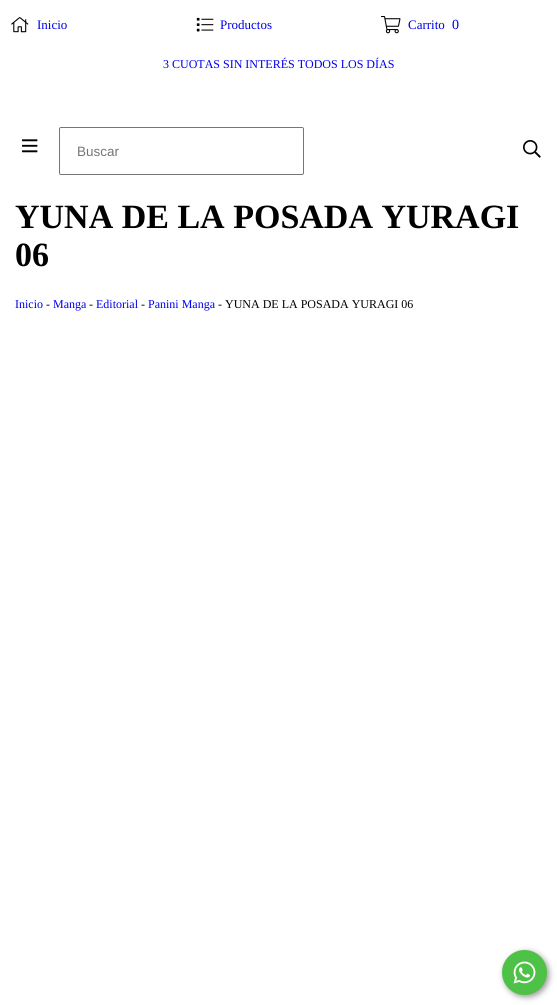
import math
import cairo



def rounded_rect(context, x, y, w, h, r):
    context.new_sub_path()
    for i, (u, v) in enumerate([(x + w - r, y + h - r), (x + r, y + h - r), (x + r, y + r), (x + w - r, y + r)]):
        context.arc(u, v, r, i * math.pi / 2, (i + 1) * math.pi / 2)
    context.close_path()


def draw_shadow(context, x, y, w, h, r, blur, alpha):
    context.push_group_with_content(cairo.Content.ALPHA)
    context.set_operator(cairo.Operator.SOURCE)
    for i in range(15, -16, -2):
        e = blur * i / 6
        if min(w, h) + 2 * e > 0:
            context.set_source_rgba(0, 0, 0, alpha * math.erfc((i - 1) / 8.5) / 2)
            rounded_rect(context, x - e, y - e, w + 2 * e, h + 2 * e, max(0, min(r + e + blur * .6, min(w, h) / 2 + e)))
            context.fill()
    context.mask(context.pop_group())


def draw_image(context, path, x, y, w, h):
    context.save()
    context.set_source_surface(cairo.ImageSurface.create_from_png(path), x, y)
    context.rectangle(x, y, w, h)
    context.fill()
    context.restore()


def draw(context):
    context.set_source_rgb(1, 1, 1)
    context.paint()
    draw_image(context, "images/1.png", 11, 17, 18, 16)
    draw_image(context, "images/2.png", 196, 17, 18, 15)
    draw_image(context, "images/3.png", 381, 16, 20, 18)
    draw_image(context, "images/4.png", 22, 139, 16, 14)
    rounded_rect(context, 59.5, 127.5, 244, 47, 1.5)
    context.set_source_rgb(118 / 255, 118 / 255, 118 / 255)
    context.set_line_width(1)
    context.stroke()
    draw_image(context, "images/5.png", 523, 140, 18, 18)
    context.set_source_rgb(0, 0, 0)
    draw_shadow(context, 504, 952, 45, 45, 22.5, 3, 0.4)
    context.set_source_rgb(77 / 255, 194 / 255, 71 / 255)
    context.arc(524.5, 972.5, 22.5, 0, 2 * math.pi)
    context.fill()
    draw_image(context, "images/6.png", 513, 961, 23, 23)
    context.select_font_face("Liberation Serif")
    context.set_font_size(13)
    context.set_source_rgb(0, 0, 238 / 255)
    context.move_to(37, 29)
    context.show_text("Inicio")
    context.move_to(220, 29)
    context.show_text("Productos")
    context.move_to(408, 29)
    context.show_text("Carrito")
    context.set_font_size(14)
    context.move_to(452, 29)
    context.show_text("0")
    context.set_font_size(12)
    context.move_to(163, 68)
    context.show_text("3 CUOTAS SIN INTERÉS TODOS LOS DÍAS")
    context.select_font_face("Liberation Sans")
    context.set_font_size(13.5)
    context.set_source_rgb(117 / 255, 117 / 255, 117 / 255)
    context.move_to(77, 156)
    context.show_text("Buscar")
    context.select_font_face("Liberation Serif", cairo.FontSlant.NORMAL, cairo.FontWeight.BOLD)
    context.set_font_size(34)
    context.set_source_rgb(0, 0, 0)
    context.move_to(15, 228)
    context.show_text("YUNA DE LA POSADA YURAGI")
    context.move_to(15, 266)
    context.show_text("06")
    context.select_font_face("Liberation Serif")
    context.set_font_size(12)
    context.set_source_rgb(0, 0, 238 / 255)
    context.move_to(15, 308)
    context.show_text("Inicio")
    context.set_source_rgb(0, 0, 0)
    context.move_to(46, 308)
    context.show_text("-")
    context.set_source_rgb(0, 0, 238 / 255)
    context.move_to(53, 308)
    context.show_text("Manga")
    context.set_source_rgb(0, 0, 0)
    context.move_to(89, 308)
    context.show_text("-")
    context.set_source_rgb(0, 0, 238 / 255)
    context.move_to(96, 308)
    context.show_text("Editorial")
    context.set_source_rgb(0, 0, 0)
    context.move_to(141, 308)
    context.show_text("-")
    context.set_source_rgb(0, 0, 238 / 255)
    context.move_to(148, 308)
    context.show_text("Panini Manga")
    context.set_source_rgb(0, 0, 0)
    context.move_to(218, 308)
    context.show_text("- YUNA DE LA POSADA YURAGI 06")


surface = cairo.ImageSurface(cairo.Format.RGB24, 557, 1005)
context = cairo.Context(surface)
options = cairo.FontOptions()
options.set_hint_metrics(cairo.HintMetrics.OFF)
options.set_hint_style(cairo.HintStyle.NONE)
context.set_font_options(options)
context.set_miter_limit(4)
draw(context)
surface.write_to_png("out.png")
